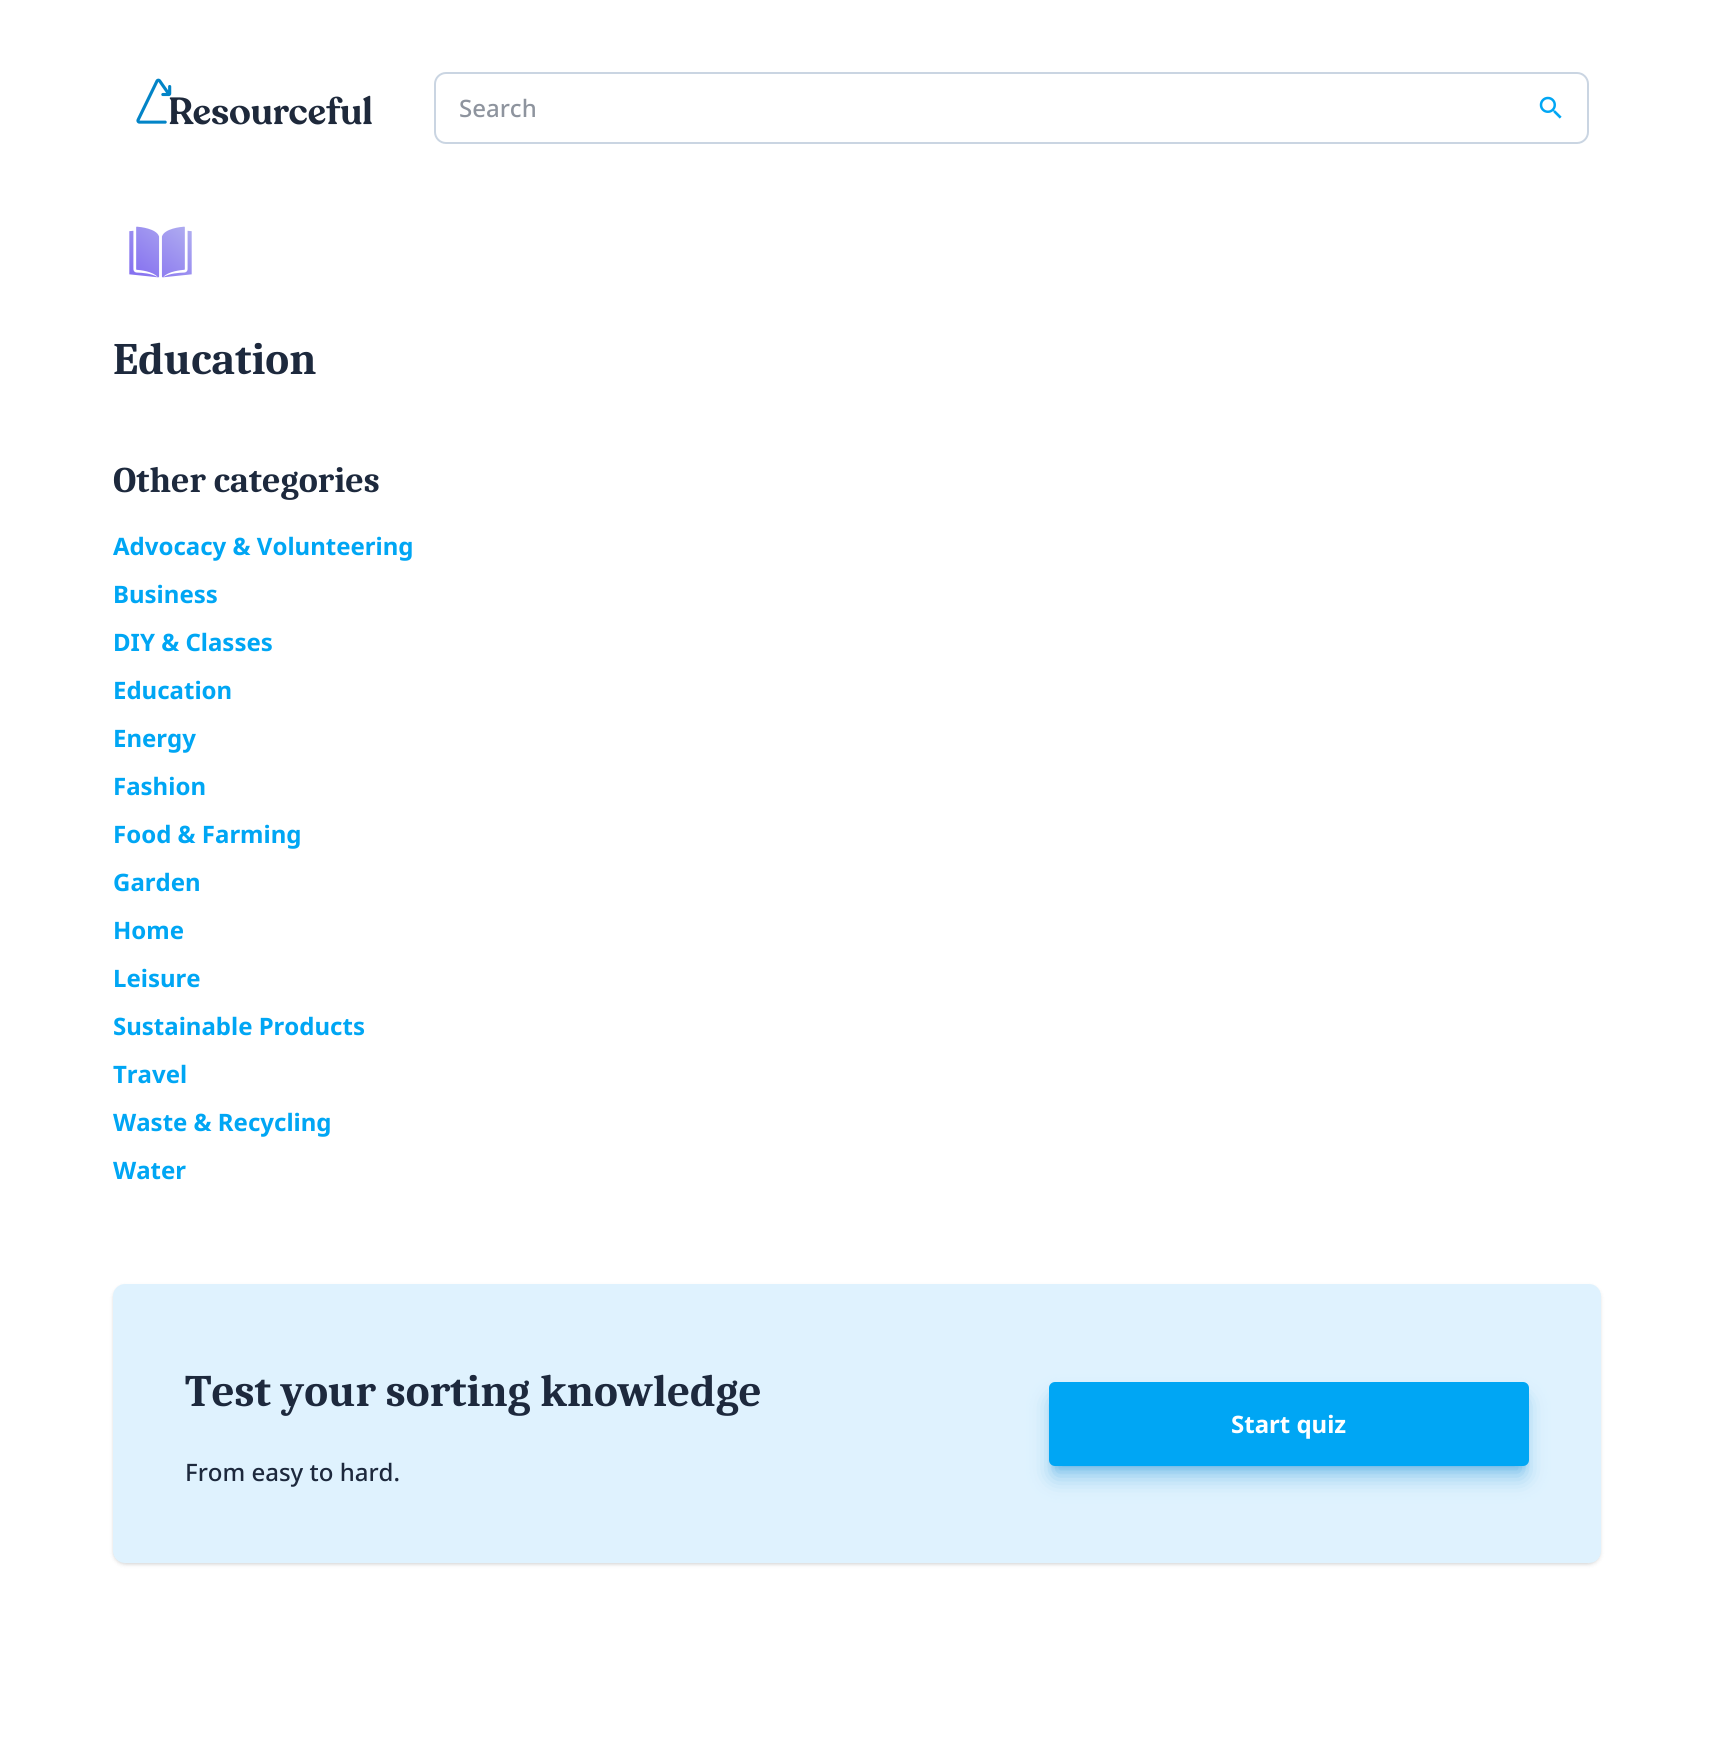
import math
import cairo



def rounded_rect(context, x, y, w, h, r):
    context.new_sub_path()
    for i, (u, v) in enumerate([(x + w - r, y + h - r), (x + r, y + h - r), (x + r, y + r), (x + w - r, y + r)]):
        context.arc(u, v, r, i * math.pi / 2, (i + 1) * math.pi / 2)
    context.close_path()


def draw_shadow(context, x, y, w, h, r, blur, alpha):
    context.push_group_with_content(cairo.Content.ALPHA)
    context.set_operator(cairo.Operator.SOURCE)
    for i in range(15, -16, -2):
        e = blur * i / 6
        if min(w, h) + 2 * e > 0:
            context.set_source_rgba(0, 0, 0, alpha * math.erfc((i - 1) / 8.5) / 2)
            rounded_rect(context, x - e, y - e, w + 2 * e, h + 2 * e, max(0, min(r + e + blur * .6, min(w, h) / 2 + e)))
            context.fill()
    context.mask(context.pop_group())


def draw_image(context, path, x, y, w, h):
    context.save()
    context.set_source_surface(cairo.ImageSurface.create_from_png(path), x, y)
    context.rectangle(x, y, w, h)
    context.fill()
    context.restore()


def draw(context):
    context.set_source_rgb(1, 1, 1)
    context.paint()
    draw_image(context, "images/1.png", 136, 78, 236, 47)
    rounded_rect(context, 435, 73, 1153, 70, 11)
    context.set_source_rgb(202 / 255, 213 / 255, 226 / 255)
    context.stroke()
    draw_image(context, "images/2.png", 1539, 96, 23, 23)
    draw_image(context, "images/3.png", 129, 226, 63, 52)
    context.set_source_rgb(0, 0, 0)
    draw_shadow(context, 114, 1287, 1485, 276, 11, 1.5, 0.1)
    draw_shadow(context, 113, 1286, 1488, 279, 12, 2, 0.1)
    context.set_source_rgb(223 / 255, 242 / 255, 254 / 255)
    rounded_rect(context, 113, 1284, 1488, 279, 12)
    context.fill()
    context.set_source_rgb(0, 132 / 255, 209 / 255)
    draw_shadow(context, 1055, 1394, 468, 72, 0, 4.5, 0.4)
    draw_shadow(context, 1053, 1401, 471, 75, 1.5, 11, 0.4)
    context.set_source_rgb(0, 166 / 255, 244 / 255)
    rounded_rect(context, 1049, 1382, 480, 84, 6)
    context.fill()
    context.select_font_face("Noto Sans Medium")
    context.set_font_size(24)
    context.set_source_rgb(142 / 255, 148 / 255, 158 / 255)
    context.move_to(459, 117)
    context.show_text("Search")
    context.select_font_face("Caladea", cairo.FontSlant.NORMAL, cairo.FontWeight.BOLD)
    context.set_font_size(45)
    context.set_source_rgb(29 / 255, 41 / 255, 61 / 255)
    context.move_to(113, 374)
    context.show_text("Education")
    context.set_font_size(36)
    context.move_to(113, 492)
    context.show_text("Other categories")
    context.select_font_face("Noto Sans", cairo.FontSlant.NORMAL, cairo.FontWeight.BOLD)
    context.set_font_size(24)
    context.set_source_rgb(0, 166 / 255, 244 / 255)
    context.move_to(113, 555)
    context.show_text("Advocacy & Volunteering")
    context.move_to(113, 603)
    context.show_text("Business")
    context.move_to(113, 651)
    context.show_text("DIY & Classes")
    context.move_to(113, 699)
    context.show_text("Education")
    context.move_to(113, 747)
    context.show_text("Energy")
    context.move_to(113, 795)
    context.show_text("Fashion")
    context.move_to(113, 843)
    context.show_text("Food & Farming")
    context.move_to(113, 891)
    context.show_text("Garden")
    context.move_to(113, 939)
    context.show_text("Home")
    context.move_to(113, 987)
    context.show_text("Leisure")
    context.move_to(113, 1035)
    context.show_text("Sustainable Products")
    context.move_to(113, 1083)
    context.show_text("Travel")
    context.move_to(113, 1131)
    context.show_text("Waste & Recycling")
    context.move_to(113, 1179)
    context.show_text("Water")
    context.select_font_face("Caladea", cairo.FontSlant.NORMAL, cairo.FontWeight.BOLD)
    context.set_font_size(45)
    context.set_source_rgb(29 / 255, 41 / 255, 61 / 255)
    context.move_to(185, 1406)
    context.show_text("Test your sorting knowledge")
    context.select_font_face("Noto Sans Medium")
    context.set_font_size(24)
    context.move_to(185, 1481)
    context.show_text("From easy to hard.")
    context.select_font_face("Noto Sans", cairo.FontSlant.NORMAL, cairo.FontWeight.BOLD)
    context.set_source_rgb(1, 1, 1)
    context.move_to(1231, 1433)
    context.show_text("Start quiz")


surface = cairo.ImageSurface(cairo.Format.RGB24, 1713, 1738)
context = cairo.Context(surface)
options = cairo.FontOptions()
options.set_hint_metrics(cairo.HintMetrics.OFF)
options.set_hint_style(cairo.HintStyle.NONE)
context.set_font_options(options)
context.set_miter_limit(4)
draw(context)
surface.write_to_png("out.png")
